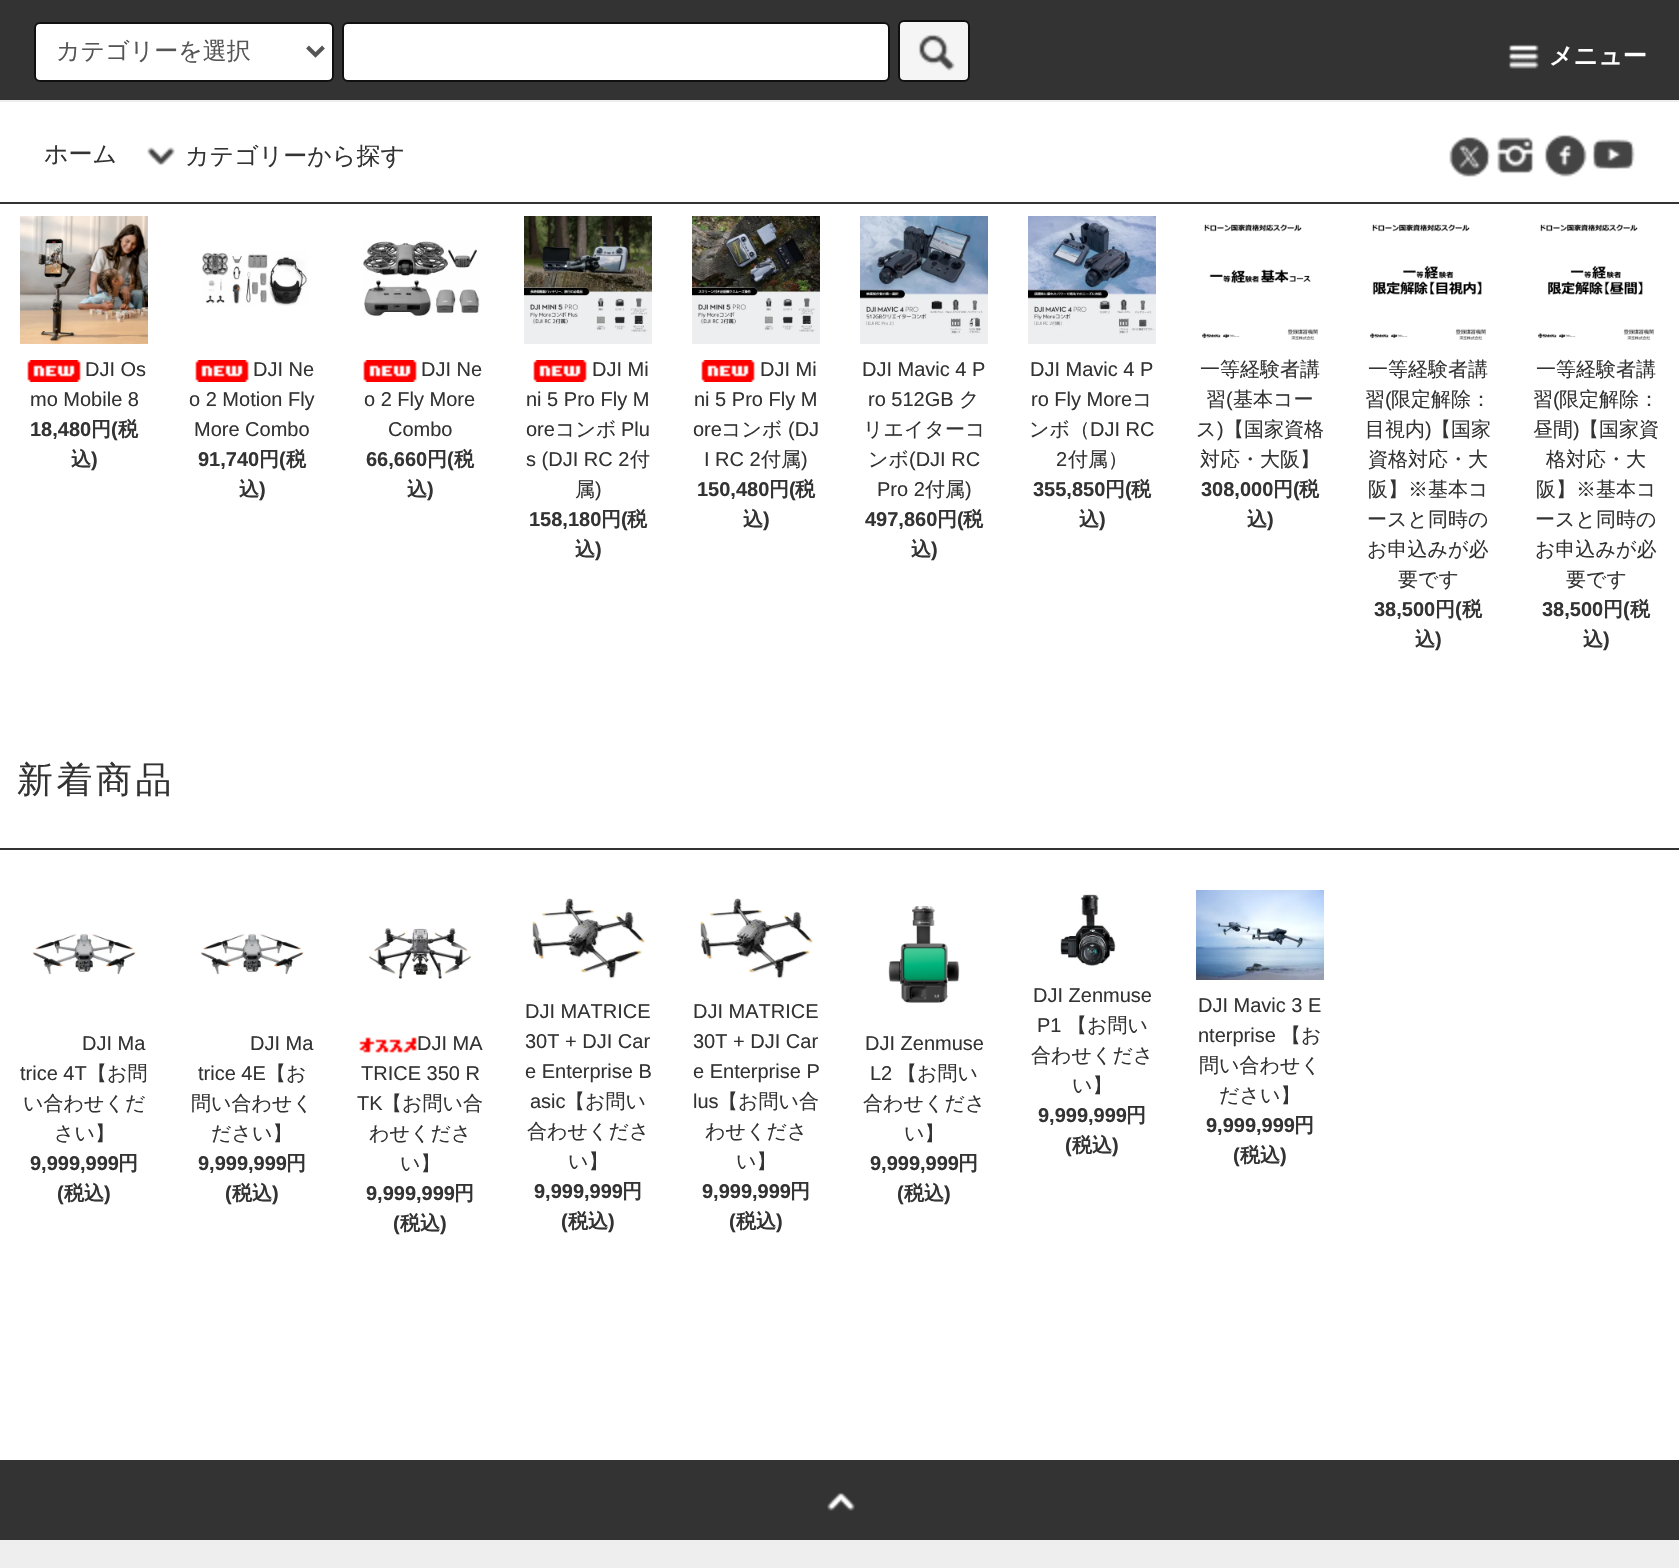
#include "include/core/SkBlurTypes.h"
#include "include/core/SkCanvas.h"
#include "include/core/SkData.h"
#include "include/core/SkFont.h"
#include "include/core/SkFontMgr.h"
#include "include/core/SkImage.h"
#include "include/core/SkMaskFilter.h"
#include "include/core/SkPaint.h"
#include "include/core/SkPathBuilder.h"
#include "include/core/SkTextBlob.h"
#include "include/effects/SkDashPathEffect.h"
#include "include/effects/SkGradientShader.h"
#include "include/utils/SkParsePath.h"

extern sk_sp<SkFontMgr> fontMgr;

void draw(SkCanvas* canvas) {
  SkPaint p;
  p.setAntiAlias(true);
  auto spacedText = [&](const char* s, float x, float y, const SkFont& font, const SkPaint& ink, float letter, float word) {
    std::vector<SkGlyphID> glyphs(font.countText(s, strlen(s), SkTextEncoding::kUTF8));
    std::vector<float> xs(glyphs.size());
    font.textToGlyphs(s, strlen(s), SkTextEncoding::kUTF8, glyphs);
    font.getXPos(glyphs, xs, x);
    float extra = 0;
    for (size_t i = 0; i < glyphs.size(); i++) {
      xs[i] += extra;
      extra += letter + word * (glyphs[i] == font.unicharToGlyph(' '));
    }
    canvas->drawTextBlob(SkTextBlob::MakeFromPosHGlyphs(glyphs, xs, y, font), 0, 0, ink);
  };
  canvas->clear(SK_ColorWHITE);
  p.setColor(SkColorSetRGB(51, 51, 51));
  canvas->drawRect(SkRect::MakeLTRB(0, 0, 1679, 100), p);
  p.setColor(SkColorSetRGB(238, 238, 238));
  canvas->drawRect(SkRect::MakeLTRB(0, 100, 1679, 102), p);
  p.setColor(SK_ColorWHITE);
  canvas->drawRoundRect(SkRect::MakeLTRB(35, 23, 333, 81), 5, 5, p);
  p.setStyle(SkPaint::kStroke_Style);
  p.setStrokeWidth(2);
  p.setColor(SkColorSetRGB(16, 16, 16));
  canvas->drawRoundRect(SkRect::MakeLTRB(35, 23, 333, 81), 5, 5, p);
  p.setStrokeWidth(4);
  p.setColor(SkColorSetRGB(85, 85, 85));
  canvas->drawPath(SkPathBuilder().moveTo(307.5f, 47).lineTo(315.5f, 55).lineTo(323.5f, 47).detach(), p);
  p.setStyle(SkPaint::kFill_Style);
  p.setColor(SK_ColorWHITE);
  canvas->drawRoundRect(SkRect::MakeLTRB(343, 23, 889, 81), 5, 5, p);
  p.setStyle(SkPaint::kStroke_Style);
  p.setStrokeWidth(2);
  p.setColor(SkColorSetRGB(16, 16, 16));
  canvas->drawRoundRect(SkRect::MakeLTRB(343, 23, 889, 81), 5, 5, p);
  p.setStyle(SkPaint::kFill_Style);
  p.setColor(SkColorSetRGB(245, 245, 245));
  canvas->drawRoundRect(SkRect::MakeLTRB(899, 21, 969, 81), 5, 5, p);
  p.setStyle(SkPaint::kStroke_Style);
  p.setColor(SkColorSetRGB(16, 16, 16));
  canvas->drawRoundRect(SkRect::MakeLTRB(899, 21, 969, 81), 5, 5, p);
  canvas->drawImageRect(SkImages::DeferredFromEncodedData(SkData::MakeFromFileName("images/1.png")), SkRect::MakeLTRB(918, 34, 955, 71), SkSamplingOptions());
  canvas->drawImageRect(SkImages::DeferredFromEncodedData(SkData::MakeFromFileName("images/2.png")), SkRect::MakeLTRB(1508, 44, 1539, 69), SkSamplingOptions());
  p.setStyle(SkPaint::kFill_Style);
  p.setColor(SkColorSetRGB(51, 51, 51));
  canvas->drawRect(SkRect::MakeLTRB(0, 202, 1679, 204), p);
  canvas->drawImageRect(SkImages::DeferredFromEncodedData(SkData::MakeFromFileName("images/3.png")), SkRect::MakeLTRB(147, 147, 175, 166), SkSamplingOptions());
  canvas->drawImageRect(SkImages::DeferredFromEncodedData(SkData::MakeFromFileName("images/4.png")), SkRect::MakeLTRB(1449, 136, 1491, 177), SkSamplingOptions());
  canvas->drawImageRect(SkImages::DeferredFromEncodedData(SkData::MakeFromFileName("images/5.png")), SkRect::MakeLTRB(1497, 137, 1534, 174), SkSamplingOptions());
  canvas->drawImageRect(SkImages::DeferredFromEncodedData(SkData::MakeFromFileName("images/6.png")), SkRect::MakeLTRB(1544, 134, 1587, 177), SkSamplingOptions());
  canvas->drawImageRect(SkImages::DeferredFromEncodedData(SkData::MakeFromFileName("images/7.png")), SkRect::MakeLTRB(1592, 139, 1635, 170), SkSamplingOptions());
  canvas->drawImageRect(SkImages::DeferredFromEncodedData(SkData::MakeFromFileName("images/8.png")), SkRect::MakeLTRB(20, 216, 148, 344), SkSamplingOptions());
  canvas->drawImageRect(SkImages::DeferredFromEncodedData(SkData::MakeFromFileName("images/9.png")), SkRect::MakeLTRB(27, 360, 81, 382), SkSamplingOptions());
  canvas->drawImageRect(SkImages::DeferredFromEncodedData(SkData::MakeFromFileName("images/10.png")), SkRect::MakeLTRB(202, 252, 308, 306), SkSamplingOptions());
  canvas->drawImageRect(SkImages::DeferredFromEncodedData(SkData::MakeFromFileName("images/9.png")), SkRect::MakeLTRB(195, 360, 249, 382), SkSamplingOptions());
  canvas->drawImageRect(SkImages::DeferredFromEncodedData(SkData::MakeFromFileName("images/11.png")), SkRect::MakeLTRB(363, 241, 480, 317), SkSamplingOptions());
  canvas->drawImageRect(SkImages::DeferredFromEncodedData(SkData::MakeFromFileName("images/9.png")), SkRect::MakeLTRB(363, 360, 417, 382), SkSamplingOptions());
  canvas->drawImageRect(SkImages::DeferredFromEncodedData(SkData::MakeFromFileName("images/12.png")), SkRect::MakeLTRB(524, 216, 652, 344), SkSamplingOptions());
  canvas->drawImageRect(SkImages::DeferredFromEncodedData(SkData::MakeFromFileName("images/9.png")), SkRect::MakeLTRB(533, 360, 587, 382), SkSamplingOptions());
  canvas->drawImageRect(SkImages::DeferredFromEncodedData(SkData::MakeFromFileName("images/13.png")), SkRect::MakeLTRB(692, 216, 820, 344), SkSamplingOptions());
  canvas->drawImageRect(SkImages::DeferredFromEncodedData(SkData::MakeFromFileName("images/9.png")), SkRect::MakeLTRB(701, 360, 755, 382), SkSamplingOptions());
  canvas->drawImageRect(SkImages::DeferredFromEncodedData(SkData::MakeFromFileName("images/14.png")), SkRect::MakeLTRB(860, 216, 988, 344), SkSamplingOptions());
  canvas->drawImageRect(SkImages::DeferredFromEncodedData(SkData::MakeFromFileName("images/15.png")), SkRect::MakeLTRB(1028, 216, 1156, 344), SkSamplingOptions());
  canvas->drawImageRect(SkImages::DeferredFromEncodedData(SkData::MakeFromFileName("images/16.png")), SkRect::MakeLTRB(1201, 224, 1318, 340), SkSamplingOptions());
  canvas->drawImageRect(SkImages::DeferredFromEncodedData(SkData::MakeFromFileName("images/17.png")), SkRect::MakeLTRB(1369, 224, 1486, 340), SkSamplingOptions());
  canvas->drawImageRect(SkImages::DeferredFromEncodedData(SkData::MakeFromFileName("images/18.png")), SkRect::MakeLTRB(1537, 224, 1654, 340), SkSamplingOptions());
  canvas->drawRect(SkRect::MakeLTRB(0, 848, 1679, 850), p);
  canvas->drawImageRect(SkImages::DeferredFromEncodedData(SkData::MakeFromFileName("images/19.png")), SkRect::MakeLTRB(32, 932, 136, 975), SkSamplingOptions());
  canvas->drawImageRect(SkImages::DeferredFromEncodedData(SkData::MakeFromFileName("images/19.png")), SkRect::MakeLTRB(200, 932, 304, 975), SkSamplingOptions());
  canvas->drawImageRect(SkImages::DeferredFromEncodedData(SkData::MakeFromFileName("images/20.png")), SkRect::MakeLTRB(368, 928, 472, 979), SkSamplingOptions());
  canvas->drawImageRect(SkImages::DeferredFromEncodedData(SkData::MakeFromFileName("images/21.png")), SkRect::MakeLTRB(359, 1037, 417, 1053), SkSamplingOptions());
  canvas->drawImageRect(SkImages::DeferredFromEncodedData(SkData::MakeFromFileName("images/22.png")), SkRect::MakeLTRB(532, 898, 646, 979), SkSamplingOptions());
  canvas->drawImageRect(SkImages::DeferredFromEncodedData(SkData::MakeFromFileName("images/22.png")), SkRect::MakeLTRB(700, 898, 814, 979), SkSamplingOptions());
  canvas->drawImageRect(SkImages::DeferredFromEncodedData(SkData::MakeFromFileName("images/23.png")), SkRect::MakeLTRB(888, 906, 960, 1003), SkSamplingOptions());
  canvas->drawImageRect(SkImages::DeferredFromEncodedData(SkData::MakeFromFileName("images/24.png")), SkRect::MakeLTRB(1060, 894, 1116, 966), SkSamplingOptions());
  canvas->drawImageRect(SkImages::DeferredFromEncodedData(SkData::MakeFromFileName("images/25.png")), SkRect::MakeLTRB(1196, 890, 1324, 980), SkSamplingOptions());
  canvas->drawRect(SkRect::MakeLTRB(0, 1460, 1679, 1540), p);
  canvas->drawImageRect(SkImages::DeferredFromEncodedData(SkData::MakeFromFileName("images/26.png")), SkRect::MakeLTRB(827, 1492, 855, 1511), SkSamplingOptions());
  p.setColor(SkColorSetRGB(238, 238, 238));
  canvas->drawRect(SkRect::MakeLTRB(0, 1540, 1679, 1568), p);
  SkFont font1(fontMgr->matchFamilyStyle("WenQuanYi Zen Hei", SkFontStyle(500, SkFontStyle::kNormal_Width, SkFontStyle::kUpright_Slant)), 24);
  font1.setSubpixel(true);
  p.setColor(SkColorSetRGB(85, 85, 85));
  canvas->drawString("カテゴリーを選択", 56, 59, font1, p);
  SkFont font2(fontMgr->matchFamilyStyle("WenQuanYi Zen Hei", SkFontStyle::Bold()), 24);
  font2.setSubpixel(true);
  p.setColor(SK_ColorWHITE);
  canvas->drawString("メニュー", 1549, 64, font2, p);
  p.setColor(SkColorSetRGB(51, 51, 51));
  canvas->drawString("ホーム", 44, 162, font1, p);
  canvas->drawString("カテゴリーから探す", 185, 164, font1, p);
  SkFont font3(fontMgr->matchFamilyStyle("Liberation Sans", SkFontStyle::Normal()), 20);
  font3.setSubpixel(true);
  canvas->drawString("DJI Os", 85, 376, font3, p);
  canvas->drawString("mo Mobile 8", 30, 406, font3, p);
  SkFont font4(fontMgr->matchFamilyStyle("Liberation Sans", SkFontStyle::Bold()), 20);
  font4.setSubpixel(true);
  canvas->drawString("18,480", 30, 436, font4, p);
  SkFont font5(fontMgr->matchFamilyStyle("WenQuanYi Zen Hei", SkFontStyle::Bold()), 20);
  font5.setSubpixel(true);
  canvas->drawString("円", 91, 436, font5, p);
  canvas->drawString("(", 111, 436, font4, p);
  canvas->drawString("税", 118, 436, font5, p);
  canvas->drawString("込", 71, 466, font5, p);
  canvas->drawString(")", 91, 466, font4, p);
  canvas->drawString("DJI Ne", 253, 376, font3, p);
  canvas->drawString("o 2 Motion Fly", 189, 406, font3, p);
  canvas->drawString("More Combo", 194, 436, font3, p);
  canvas->drawString("91,740", 198, 466, font4, p);
  canvas->drawString("円", 259, 466, font5, p);
  canvas->drawString("(", 279, 466, font4, p);
  canvas->drawString("税", 286, 466, font5, p);
  canvas->drawString("込", 239, 496, font5, p);
  canvas->drawString(")", 259, 496, font4, p);
  canvas->drawString("DJI Ne", 421, 376, font3, p);
  canvas->drawString("o 2 Fly More", 364, 406, font3, p);
  canvas->drawString("Combo", 388, 436, font3, p);
  canvas->drawString("66,660", 366, 466, font4, p);
  canvas->drawString("円", 427, 466, font5, p);
  canvas->drawString("(", 447, 466, font4, p);
  canvas->drawString("税", 454, 466, font5, p);
  canvas->drawString("込", 407, 496, font5, p);
  canvas->drawString(")", 427, 496, font4, p);
  canvas->drawString("DJI Mi", 592, 376, font3, p);
  canvas->drawString("ni 5 Pro Fly M", 526, 406, font3, p);
  canvas->drawString("ore", 526, 436, font3, p);
  SkFont font6(fontMgr->matchFamilyStyle("WenQuanYi Zen Hei", SkFontStyle(500, SkFontStyle::kNormal_Width, SkFontStyle::kUpright_Slant)), 20);
  font6.setSubpixel(true);
  canvas->drawString("コンボ", 555, 436, font6, p);
  canvas->drawString("Plu", 621, 436, font3, p);
  canvas->drawString("s (DJI RC 2", 526, 466, font3, p);
  canvas->drawString("付", 630, 466, font6, p);
  canvas->drawString("属", 575, 496, font6, p);
  canvas->drawString(")", 595, 496, font3, p);
  canvas->drawString("158,180", 529, 526, font4, p);
  canvas->drawString("円", 601, 526, font5, p);
  canvas->drawString("(", 621, 526, font4, p);
  canvas->drawString("税", 627, 526, font5, p);
  canvas->drawString("込", 575, 556, font5, p);
  canvas->drawString(")", 595, 556, font4, p);
  canvas->drawString("DJI Mi", 760, 376, font3, p);
  canvas->drawString("ni 5 Pro Fly M", 694, 406, font3, p);
  canvas->drawString("ore", 693, 436, font3, p);
  canvas->drawString("コンボ", 721, 436, font6, p);
  canvas->drawString("(DJ", 788, 436, font3, p);
  canvas->drawString("I RC 2", 704, 466, font3, p);
  canvas->drawString("付属", 761, 466, font6, p);
  canvas->drawString(")", 801, 466, font3, p);
  canvas->drawString("150,480", 697, 496, font4, p);
  canvas->drawString("円", 769, 496, font5, p);
  canvas->drawString("(", 789, 496, font4, p);
  canvas->drawString("税", 795, 496, font5, p);
  canvas->drawString("込", 743, 526, font5, p);
  canvas->drawString(")", 763, 526, font4, p);
  canvas->drawString("DJI Mavic 4 P", 862, 376, font3, p);
  canvas->drawString("ro 512GB", 868, 406, font3, p);
  canvas->drawString("ク", 959, 406, font6, p);
  canvas->drawString("リエイターコ", 863, 436, font6, p);
  canvas->drawString("ンボ", 868, 466, font6, p);
  canvas->drawString("(DJI RC", 909, 466, font3, p);
  canvas->drawString("Pro 2", 877, 496, font3, p);
  canvas->drawString("付属", 925, 496, font6, p);
  canvas->drawString(")", 965, 496, font3, p);
  canvas->drawString("497,860", 865, 526, font4, p);
  canvas->drawString("円", 937, 526, font5, p);
  canvas->drawString("(", 957, 526, font4, p);
  canvas->drawString("税", 963, 526, font5, p);
  canvas->drawString("込", 911, 556, font5, p);
  canvas->drawString(")", 931, 556, font4, p);
  canvas->drawString("DJI Mavic 4 P", 1030, 376, font3, p);
  canvas->drawString("ro Fly More", 1031, 406, font3, p);
  canvas->drawString("コ", 1132, 406, font6, p);
  canvas->drawString("ンボ（", 1029, 436, font6, p);
  canvas->drawString("DJI RC", 1090, 436, font3, p);
  canvas->drawString("2", 1056, 466, font3, p);
  canvas->drawString("付属）", 1068, 466, font6, p);
  canvas->drawString("355,850", 1033, 496, font4, p);
  canvas->drawString("円", 1105, 496, font5, p);
  canvas->drawString("(", 1125, 496, font4, p);
  canvas->drawString("税", 1131, 496, font5, p);
  canvas->drawString("込", 1079, 526, font5, p);
  canvas->drawString(")", 1099, 526, font4, p);
  canvas->drawString("一等経験者講", 1200, 376, font6, p);
  canvas->drawString("習", 1206, 406, font6, p);
  canvas->drawString("(", 1226, 406, font3, p);
  canvas->drawString("基本コー", 1233, 406, font6, p);
  canvas->drawString("ス", 1196, 436, font6, p);
  canvas->drawString(")", 1217, 436, font3, p);
  canvas->drawString("【国家資格", 1224, 436, font6, p);
  canvas->drawString("対応・大阪】", 1200, 466, font6, p);
  canvas->drawString("308,000", 1201, 496, font4, p);
  canvas->drawString("円", 1273, 496, font5, p);
  canvas->drawString("(", 1293, 496, font4, p);
  canvas->drawString("税", 1299, 496, font5, p);
  canvas->drawString("込", 1247, 526, font5, p);
  canvas->drawString(")", 1267, 526, font4, p);
  canvas->drawString("一等経験者講", 1368, 376, font6, p);
  canvas->drawString("習", 1365, 406, font6, p);
  canvas->drawString("(", 1385, 406, font3, p);
  canvas->drawString("限定解除：", 1391, 406, font6, p);
  canvas->drawString("目視内", 1365, 436, font6, p);
  canvas->drawString(")", 1425, 436, font3, p);
  canvas->drawString("【国家", 1431, 436, font6, p);
  canvas->drawString("資格対応・大", 1368, 466, font6, p);
  canvas->drawString("阪】※基本コ", 1368, 496, font6, p);
  canvas->drawString("ースと同時の", 1367, 526, font6, p);
  canvas->drawString("お申込みが必", 1367, 556, font6, p);
  canvas->drawString("要です", 1398, 586, font6, p);
  canvas->drawString("38,500", 1374, 616, font4, p);
  canvas->drawString("円", 1435, 616, font5, p);
  canvas->drawString("(", 1455, 616, font4, p);
  canvas->drawString("税", 1462, 616, font5, p);
  canvas->drawString("込", 1415, 646, font5, p);
  canvas->drawString(")", 1435, 646, font4, p);
  canvas->drawString("一等経験者講", 1536, 376, font6, p);
  canvas->drawString("習", 1533, 406, font6, p);
  canvas->drawString("(", 1553, 406, font3, p);
  canvas->drawString("限定解除：", 1559, 406, font6, p);
  canvas->drawString("昼間", 1533, 436, font6, p);
  canvas->drawString(")", 1573, 436, font3, p);
  canvas->drawString("【国家資", 1579, 436, font6, p);
  canvas->drawString("格対応・大", 1546, 466, font6, p);
  canvas->drawString("阪】※基本コ", 1536, 496, font6, p);
  canvas->drawString("ースと同時の", 1535, 526, font6, p);
  canvas->drawString("お申込みが必", 1535, 556, font6, p);
  canvas->drawString("要です", 1566, 586, font6, p);
  canvas->drawString("38,500", 1542, 616, font4, p);
  canvas->drawString("円", 1603, 616, font5, p);
  canvas->drawString("(", 1623, 616, font4, p);
  canvas->drawString("税", 1630, 616, font5, p);
  canvas->drawString("込", 1583, 646, font5, p);
  canvas->drawString(")", 1603, 646, font4, p);
  SkFont font7(fontMgr->matchFamilyStyle("WenQuanYi Zen Hei", SkFontStyle(500, SkFontStyle::kNormal_Width, SkFontStyle::kUpright_Slant)), 36);
  font7.setSubpixel(true);
  spacedText("新着商品", 17, 792, font7, p, 3.5f, 0);
  canvas->drawString("DJI Ma", 82, 1050, font3, p);
  canvas->drawString("trice 4T", 20, 1080, font3, p);
  canvas->drawString("【お問", 87, 1080, font6, p);
  canvas->drawString("い合わせくだ", 23, 1110, font6, p);
  canvas->drawString("さい】", 54, 1140, font6, p);
  canvas->drawString("9,999,999", 30, 1170, font4, p);
  canvas->drawString("円", 118, 1170, font5, p);
  canvas->drawString("(", 57, 1200, font4, p);
  canvas->drawString("税込", 64, 1200, font5, p);
  canvas->drawString(")", 104, 1200, font4, p);
  canvas->drawString("DJI Ma", 250, 1050, font3, p);
  canvas->drawString("trice 4E", 198, 1080, font3, p);
  canvas->drawString("【お", 266, 1080, font6, p);
  canvas->drawString("問い合わせく", 191, 1110, font6, p);
  canvas->drawString("ださい】", 211, 1140, font6, p);
  canvas->drawString("9,999,999", 198, 1170, font4, p);
  canvas->drawString("円", 286, 1170, font5, p);
  canvas->drawString("(", 225, 1200, font4, p);
  canvas->drawString("税込", 232, 1200, font5, p);
  canvas->drawString(")", 272, 1200, font4, p);
  canvas->drawString("DJI MA", 417, 1050, font3, p);
  canvas->drawString("TRICE 350 R", 361, 1080, font3, p);
  canvas->drawString("TK", 357, 1110, font3, p);
  canvas->drawString("【お問い合", 382, 1110, font6, p);
  canvas->drawString("わせくださ", 369, 1140, font6, p);
  canvas->drawString("い】", 400, 1170, font6, p);
  canvas->drawString("9,999,999", 366, 1200, font4, p);
  canvas->drawString("円", 454, 1200, font5, p);
  canvas->drawString("(", 393, 1230, font4, p);
  canvas->drawString("税込", 400, 1230, font5, p);
  canvas->drawString(")", 440, 1230, font4, p);
  canvas->drawString("DJI MATRICE", 525, 1018, font3, p);
  canvas->drawString("30T + DJI Car", 525, 1048, font3, p);
  canvas->drawString("e Enterprise B", 525, 1078, font3, p);
  canvas->drawString("asic", 530, 1108, font3, p);
  canvas->drawString("【お問い", 565, 1108, font6, p);
  canvas->drawString("合わせくださ", 527, 1138, font6, p);
  canvas->drawString("い】", 568, 1168, font6, p);
  canvas->drawString("9,999,999", 534, 1198, font4, p);
  canvas->drawString("円", 622, 1198, font5, p);
  canvas->drawString("(", 561, 1228, font4, p);
  canvas->drawString("税込", 568, 1228, font5, p);
  canvas->drawString(")", 608, 1228, font4, p);
  canvas->drawString("DJI MATRICE", 693, 1018, font3, p);
  canvas->drawString("30T + DJI Car", 693, 1048, font3, p);
  canvas->drawString("e Enterprise P", 693, 1078, font3, p);
  canvas->drawString("lus", 693, 1108, font3, p);
  canvas->drawString("【お問い合", 718, 1108, font6, p);
  canvas->drawString("わせくださ", 705, 1138, font6, p);
  canvas->drawString("い】", 736, 1168, font6, p);
  canvas->drawString("9,999,999", 702, 1198, font4, p);
  canvas->drawString("円", 790, 1198, font5, p);
  canvas->drawString("(", 729, 1228, font4, p);
  canvas->drawString("税込", 736, 1228, font5, p);
  canvas->drawString(")", 776, 1228, font4, p);
  canvas->drawString("DJI Zenmuse", 865, 1050, font3, p);
  canvas->drawString("L2", 870, 1080, font3, p);
  canvas->drawString("【お問い", 897, 1080, font6, p);
  canvas->drawString("合わせくださ", 863, 1110, font6, p);
  canvas->drawString("い】", 904, 1140, font6, p);
  canvas->drawString("9,999,999", 870, 1170, font4, p);
  canvas->drawString("円", 958, 1170, font5, p);
  canvas->drawString("(", 897, 1200, font4, p);
  canvas->drawString("税込", 904, 1200, font5, p);
  canvas->drawString(")", 944, 1200, font4, p);
  canvas->drawString("DJI Zenmuse", 1033, 1002, font3, p);
  canvas->drawString("P1", 1037, 1032, font3, p);
  canvas->drawString("【お問い", 1067, 1032, font6, p);
  canvas->drawString("合わせくださ", 1031, 1062, font6, p);
  canvas->drawString("い】", 1072, 1092, font6, p);
  canvas->drawString("9,999,999", 1038, 1122, font4, p);
  canvas->drawString("円", 1126, 1122, font5, p);
  canvas->drawString("(", 1065, 1152, font4, p);
  canvas->drawString("税込", 1072, 1152, font5, p);
  canvas->drawString(")", 1112, 1152, font4, p);
  canvas->drawString("DJI Mavic 3 E", 1198, 1012, font3, p);
  canvas->drawString("nterprise", 1198, 1042, font3, p);
  canvas->drawString("【お", 1281, 1042, font6, p);
  canvas->drawString("問い合わせく", 1199, 1072, font6, p);
  canvas->drawString("ださい】", 1219, 1102, font6, p);
  canvas->drawString("9,999,999", 1206, 1132, font4, p);
  canvas->drawString("円", 1294, 1132, font5, p);
  canvas->drawString("(", 1233, 1162, font4, p);
  canvas->drawString("税込", 1240, 1162, font5, p);
  canvas->drawString(")", 1280, 1162, font4, p);
}
